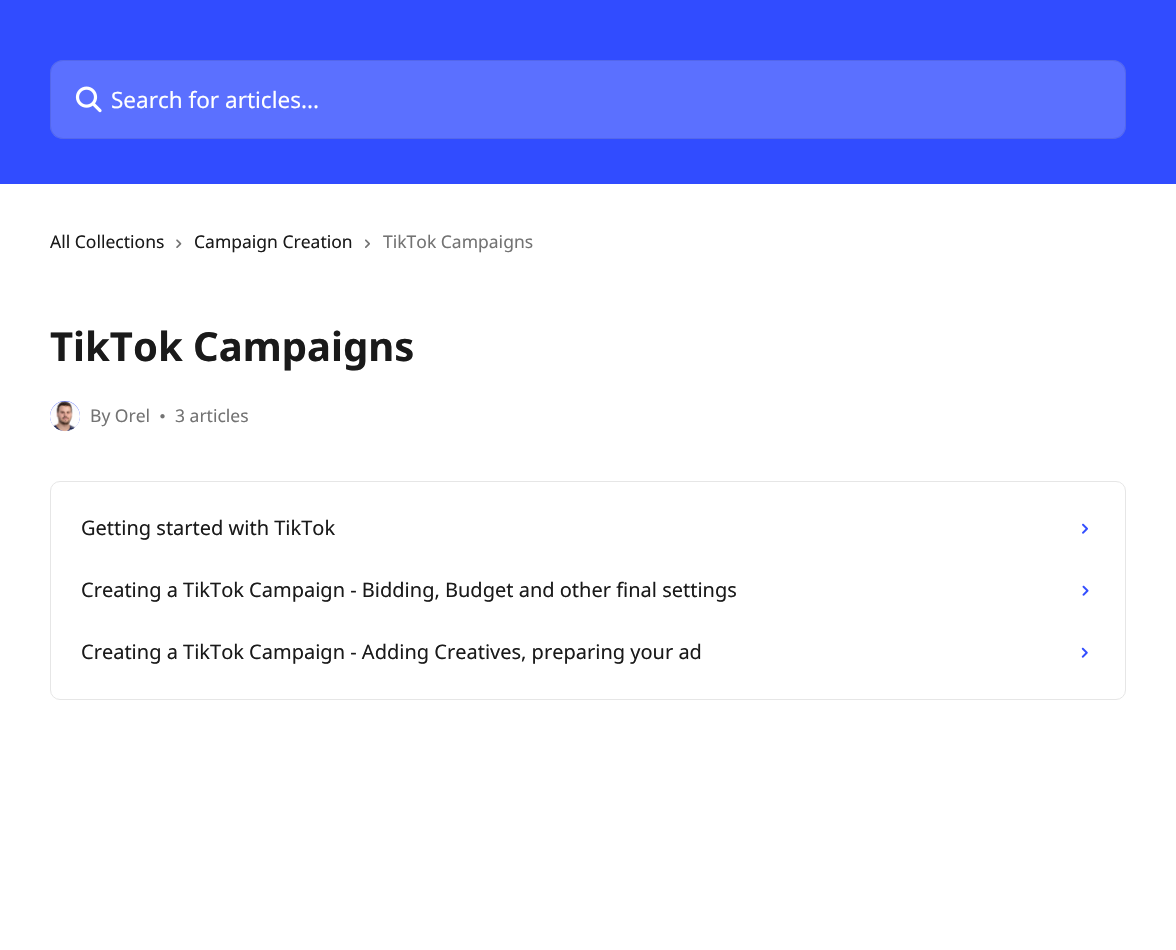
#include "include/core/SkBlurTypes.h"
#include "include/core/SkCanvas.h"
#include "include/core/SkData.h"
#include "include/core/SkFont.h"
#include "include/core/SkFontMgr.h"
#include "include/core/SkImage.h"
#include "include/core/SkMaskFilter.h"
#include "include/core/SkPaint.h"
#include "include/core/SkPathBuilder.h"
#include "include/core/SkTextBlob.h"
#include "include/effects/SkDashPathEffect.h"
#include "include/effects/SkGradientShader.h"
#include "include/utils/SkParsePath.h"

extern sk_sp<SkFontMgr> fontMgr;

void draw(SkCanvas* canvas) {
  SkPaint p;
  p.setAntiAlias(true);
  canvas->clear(SK_ColorWHITE);
  p.setColor(SkColorSetRGB(49, 76, 255));
  canvas->drawRect(SkRect::MakeLTRB(0, 0, 1176, 184), p);
  p.setColor(SkColorSetARGB(51, 255, 255, 255));
  canvas->drawRoundRect(SkRect::MakeLTRB(50, 60, 1126, 139), 13, 13, p);
  p.setStyle(SkPaint::kStroke_Style);
  p.setStrokeWidth(1);
  p.setColor(SkColorSetARGB(20, 0, 0, 0));
  canvas->drawRoundRect(SkRect::MakeLTRB(50.5f, 60.5f, 1125.5f, 138.5f), 12.5f, 12.5f, p);
  canvas->drawImageRect(SkImages::DeferredFromEncodedData(SkData::MakeFromFileName("images/1.png")), SkRect::MakeLTRB(75, 86, 102, 113), SkSamplingOptions());
  canvas->drawImageRect(SkImages::DeferredFromEncodedData(SkData::MakeFromFileName("images/2.png")), SkRect::MakeLTRB(176, 239, 182, 248), SkSamplingOptions());
  canvas->drawImageRect(SkImages::DeferredFromEncodedData(SkData::MakeFromFileName("images/3.png")), SkRect::MakeLTRB(365, 239, 370, 248), SkSamplingOptions());
  p.setStyle(SkPaint::kFill_Style);
  p.setColor(SkColorSetRGB(51, 78, 255));
  canvas->drawCircle(65, 416, 15, p);
  canvas->drawImageRect(SkImages::DeferredFromEncodedData(SkData::MakeFromFileName("images/4.png")), SkRect::MakeLTRB(50, 401, 80, 432), SkSamplingOptions());
  canvas->drawImageRect(SkImages::DeferredFromEncodedData(SkData::MakeFromFileName("images/5.png")), SkRect::MakeLTRB(160, 414, 165, 419), SkSamplingOptions());
  p.setStyle(SkPaint::kStroke_Style);
  p.setColor(SkColorSetRGB(230, 230, 230));
  canvas->drawRoundRect(SkRect::MakeLTRB(50.5f, 481.5f, 1125.5f, 699.5f), 9.5f, 9.5f, p);
  canvas->drawImageRect(SkImages::DeferredFromEncodedData(SkData::MakeFromFileName("images/6.png")), SkRect::MakeLTRB(1082, 523, 1088, 534), SkSamplingOptions());
  canvas->drawImageRect(SkImages::DeferredFromEncodedData(SkData::MakeFromFileName("images/7.png")), SkRect::MakeLTRB(1082, 585, 1089, 596), SkSamplingOptions());
  canvas->drawImageRect(SkImages::DeferredFromEncodedData(SkData::MakeFromFileName("images/8.png")), SkRect::MakeLTRB(1081, 647, 1088, 658), SkSamplingOptions());
  SkFont font1(fontMgr->matchFamilyStyle("Noto Sans", SkFontStyle::Normal()), 22.5f);
  font1.setSubpixel(true);
  p.setStyle(SkPaint::kFill_Style);
  p.setColor(SK_ColorWHITE);
  canvas->drawString("Search for articles...", 111, 108, font1, p);
  SkFont font2(fontMgr->matchFamilyStyle("Noto Sans", SkFontStyle::Normal()), 17.5f);
  font2.setSubpixel(true);
  p.setColor(SkColorSetRGB(26, 26, 26));
  canvas->drawString("All Collections", 50, 248, font2, p);
  canvas->drawString("Campaign Creation", 194, 248, font2, p);
  p.setColor(SkColorSetRGB(115, 115, 115));
  canvas->drawString("TikTok Campaigns", 383, 248, font2, p);
  SkFont font3(fontMgr->matchFamilyStyle("Noto Sans", SkFontStyle::Bold()), 40);
  font3.setSubpixel(true);
  p.setColor(SkColorSetRGB(26, 26, 26));
  canvas->drawString("TikTok Campaigns", 50, 361, font3, p);
  p.setColor(SkColorSetRGB(115, 115, 115));
  canvas->drawString("By Orel", 90, 422, font2, p);
  canvas->drawString("3 articles", 175, 422, font2, p);
  SkFont font4(fontMgr->matchFamilyStyle("Noto Sans", SkFontStyle::Normal()), 20);
  font4.setSubpixel(true);
  p.setColor(SkColorSetRGB(26, 26, 26));
  canvas->drawString("Getting started with TikTok", 81, 535, font4, p);
  canvas->drawString("Creating a TikTok Campaign - Bidding, Budget and other final settings", 81, 597, font4, p);
  canvas->drawString("Creating a TikTok Campaign - Adding Creatives, preparing your ad", 81, 659, font4, p);
}
